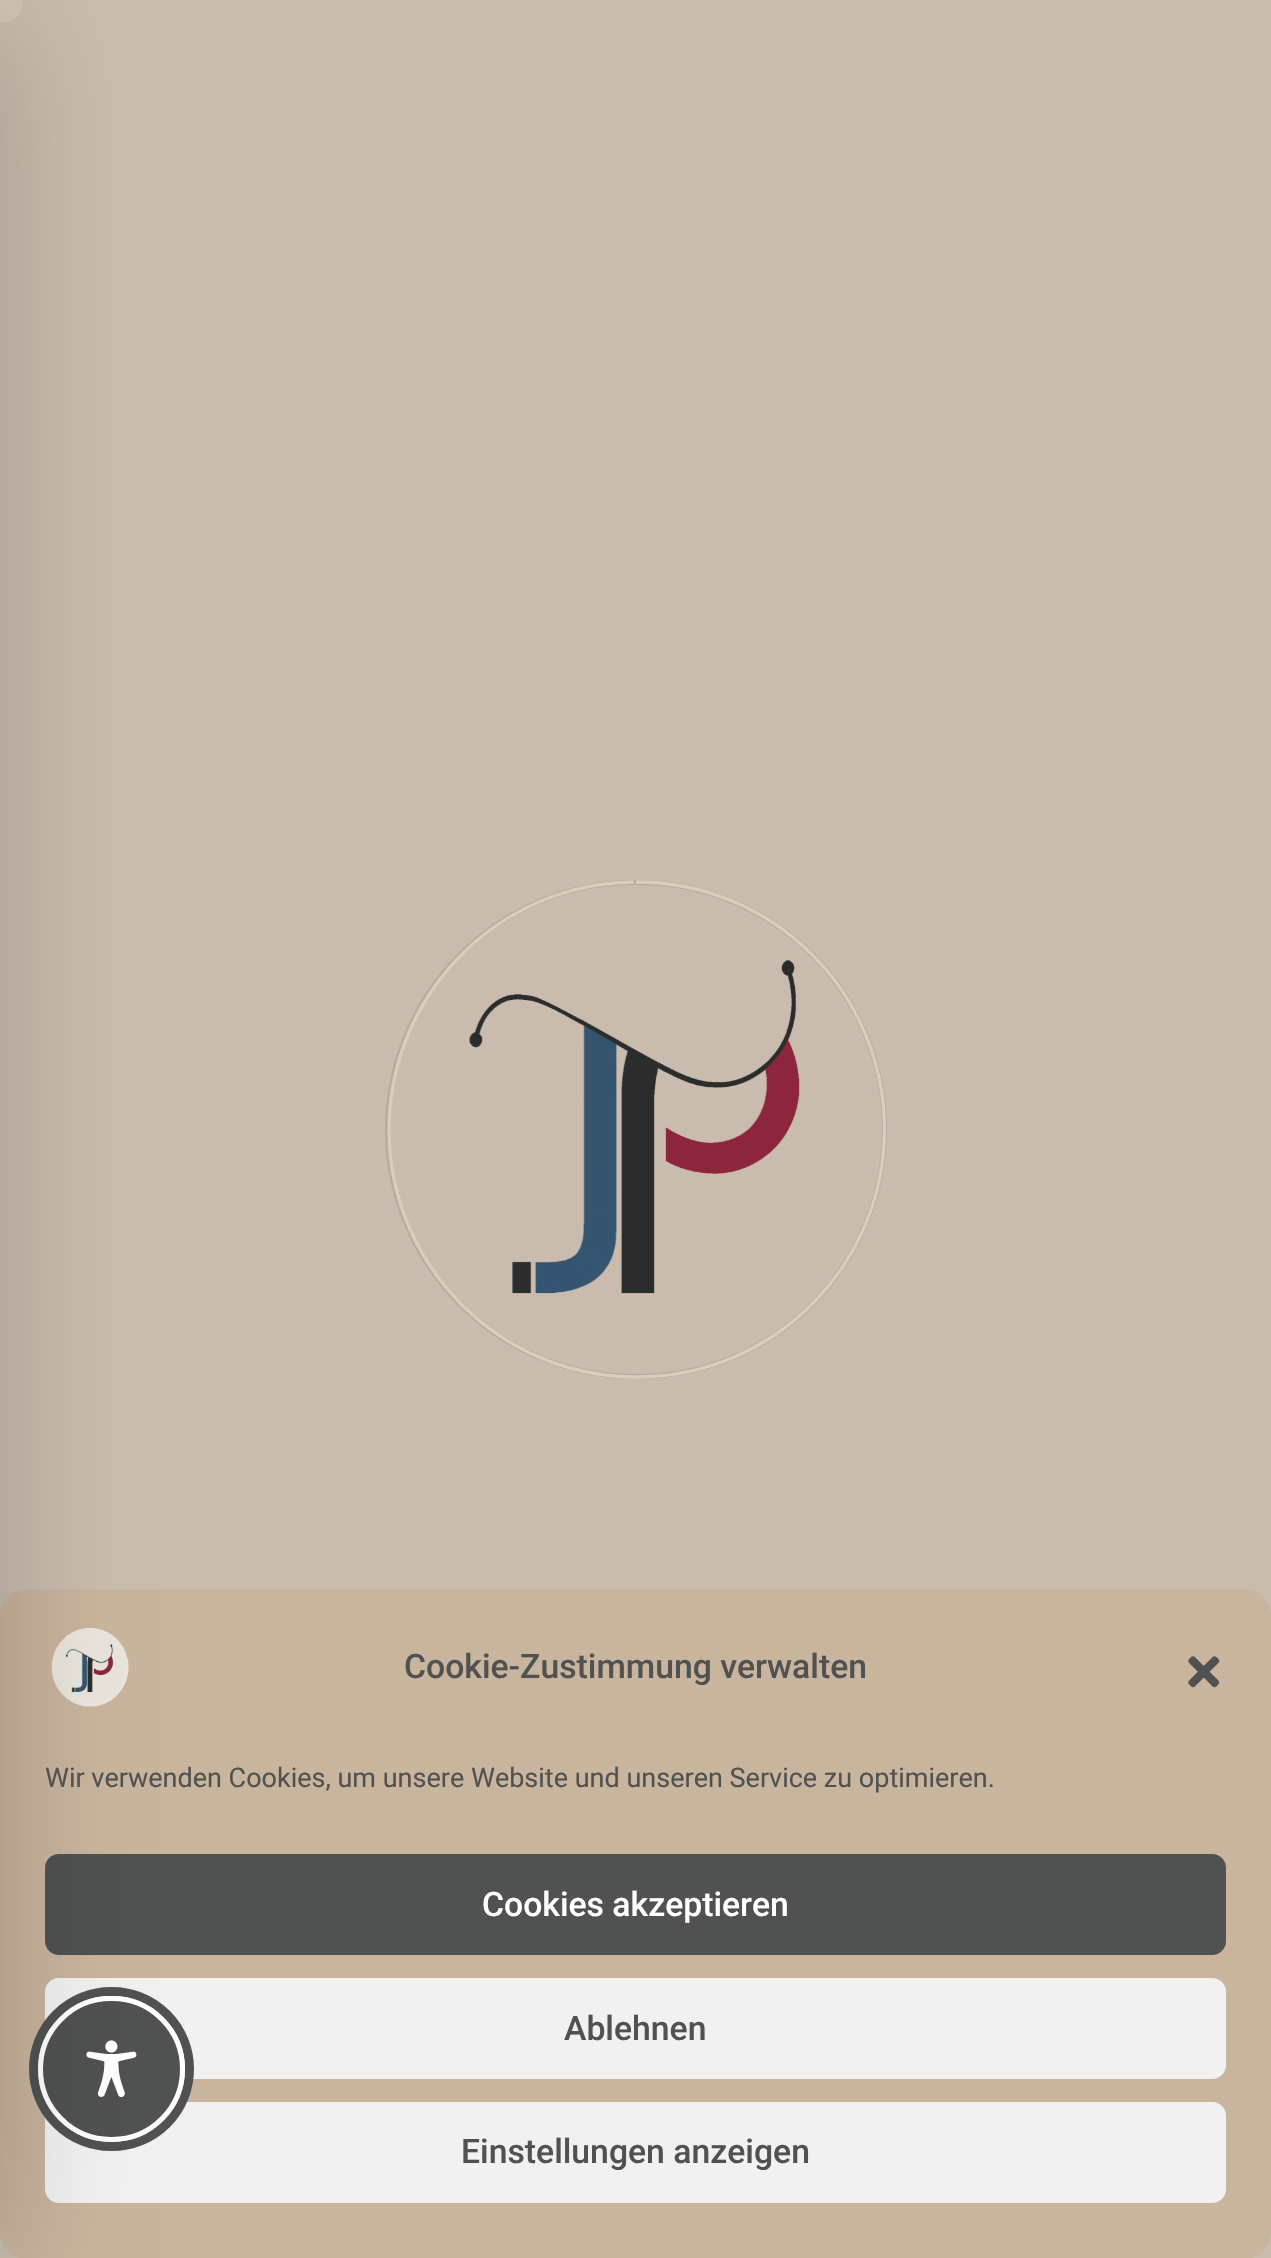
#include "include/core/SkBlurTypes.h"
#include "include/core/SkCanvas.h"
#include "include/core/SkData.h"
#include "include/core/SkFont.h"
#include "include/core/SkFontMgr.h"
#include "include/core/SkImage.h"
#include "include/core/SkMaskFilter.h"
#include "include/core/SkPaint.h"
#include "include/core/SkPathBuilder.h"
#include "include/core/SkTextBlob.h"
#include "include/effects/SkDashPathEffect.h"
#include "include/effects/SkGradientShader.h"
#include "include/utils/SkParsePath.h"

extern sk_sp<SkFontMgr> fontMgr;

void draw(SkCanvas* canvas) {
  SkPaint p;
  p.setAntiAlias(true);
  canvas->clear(SkColorSetRGB(201, 188, 174));
  p.setColor(SkColorSetRGB(209, 197, 180));
  canvas->drawCircle(0.5f, 0.5f, 22.5f, p);
  p.setStyle(SkPaint::kStroke_Style);
  p.setStrokeWidth(5);
  p.setColor(SkColorSetRGB(182, 172, 163));
  canvas->drawRoundRect(SkRect::MakeLTRB(387.5f, 882.5f, 884.5f, 1376.5f), 247, 247, p);
  canvas->drawImageRect(SkImages::DeferredFromEncodedData(SkData::MakeFromFileName("images/1.png")), SkRect::MakeLTRB(469, 960, 800, 1294), SkSamplingOptions());
  canvas->save();
  canvas->clipPath(SkPathBuilder().moveTo(637, 880).cubicTo(775, 880, 887, 992, 887, 1130).lineTo(887, 1132).cubicTo(887, 1270, 775, 1382, 637, 1382).cubicTo(499, 1382, 387, 1270, 387, 1132).lineTo(387, 1130).cubicTo(387, 992, 499, 880, 637, 880).close().detach(), true);
  p.setStrokeWidth(3.3f);
  p.setColor(SkColorSetRGB(217, 206, 185));
  canvas->drawPath(SkPathBuilder().moveTo(633.5f, 882).cubicTo(498, 883.5f, 389, 994.5f, 389, 1130).cubicTo(389.5f, 1267, 500.5f, 1377.5f, 637.5f, 1377).cubicTo(774, 1376.5f, 884.5f, 1265.5f, 884.5f, 1129).cubicTo(884, 992, 773, 881.5f, 636, 882).detach(), p);
  canvas->restore();
  p.setStyle(SkPaint::kFill_Style);
  p.setColor(SkColorSetRGB(201, 180, 157));
  canvas->drawRoundRect(SkRect::MakeLTRB(0, 1589, 1271, 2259), 27, 27, p);
  canvas->drawImageRect(SkImages::DeferredFromEncodedData(SkData::MakeFromFileName("images/2.png")), SkRect::MakeLTRB(51, 1628, 129, 1707), SkSamplingOptions());
  p.setColor(SkColorSetRGB(80, 82, 82));
  canvas->drawRoundRect(SkRect::MakeLTRB(46, 1855, 1225, 1954), 13, 13, p);
  p.setStyle(SkPaint::kStroke_Style);
  p.setStrokeWidth(2);
  canvas->drawRoundRect(SkRect::MakeLTRB(46, 1855, 1225, 1954), 13, 13, p);
  p.setStyle(SkPaint::kFill_Style);
  p.setColor(SkColorSetRGB(241, 241, 241));
  canvas->drawRoundRect(SkRect::MakeLTRB(46, 1979, 1225, 2078), 13, 13, p);
  p.setStyle(SkPaint::kStroke_Style);
  canvas->drawRoundRect(SkRect::MakeLTRB(46, 1979, 1225, 2078), 13, 13, p);
  p.setStyle(SkPaint::kFill_Style);
  canvas->drawRoundRect(SkRect::MakeLTRB(46, 2103, 1225, 2202), 13, 13, p);
  p.setStyle(SkPaint::kStroke_Style);
  canvas->drawRoundRect(SkRect::MakeLTRB(46, 2103, 1225, 2202), 13, 13, p);
  p.setStrokeWidth(9);
  p.setColor(SkColorSetRGB(80, 82, 82));
  canvas->drawRoundRect(SkRect::MakeLTRB(33.5f, 1991.5f, 189.5f, 2146.5f), 77.5f, 77.5f, p);
  p.setStyle(SkPaint::kFill_Style);
  canvas->drawRoundRect(SkRect::MakeLTRB(40.5f, 1998.5f, 182.5f, 2139.5f), 70.5f, 70.5f, p);
  p.setStyle(SkPaint::kStroke_Style);
  p.setStrokeWidth(5);
  p.setColor(SK_ColorWHITE);
  canvas->drawRoundRect(SkRect::MakeLTRB(40.5f, 1998.5f, 182.5f, 2139.5f), 70.5f, 70.5f, p);
  canvas->drawImageRect(SkImages::DeferredFromEncodedData(SkData::MakeFromFileName("images/4.png")), SkRect::MakeLTRB(86, 2040, 137, 2098), SkSamplingOptions());
  p.setStyle(SkPaint::kFill_Style);
  p.setColor(SkColorSetARGB(51, 0, 0, 0));
  p.setMaskFilter(SkMaskFilter::MakeBlur(kNormal_SkBlurStyle, 67.5f));
  canvas->drawRect(SkRect::MakeLTRB(-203, 23, 0, 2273), p);
  p.setMaskFilter(nullptr);
  canvas->drawImageRect(SkImages::DeferredFromEncodedData(SkData::MakeFromFileName("images/3.png")), SkRect::MakeLTRB(1188, 1656, 1220, 1688), SkSamplingOptions());
  SkFont font1(fontMgr->matchFamilyStyle("Roboto", SkFontStyle(500, SkFontStyle::kNormal_Width, SkFontStyle::kUpright_Slant)), 33.75f);
  font1.setSubpixel(true);
  p.setColor(SkColorSetRGB(80, 82, 82));
  canvas->drawString("Cookie-Zustimmung verwalten", 404, 1678, font1, p);
  SkFont font2(fontMgr->matchFamilyStyle("Roboto", SkFontStyle::Normal()), 27);
  font2.setSubpixel(true);
  canvas->drawString("Wir verwenden Cookies, um unsere Website und unseren Service zu optimieren.", 45, 1787, font2, p);
  p.setColor(SK_ColorWHITE);
  canvas->drawString("Cookies akzeptieren", 482, 1916, font1, p);
  p.setColor(SkColorSetRGB(80, 82, 82));
  canvas->drawString("Ablehnen", 564, 2040, font1, p);
  canvas->drawString("Einstellungen anzeigen", 461, 2163, font1, p);
}
